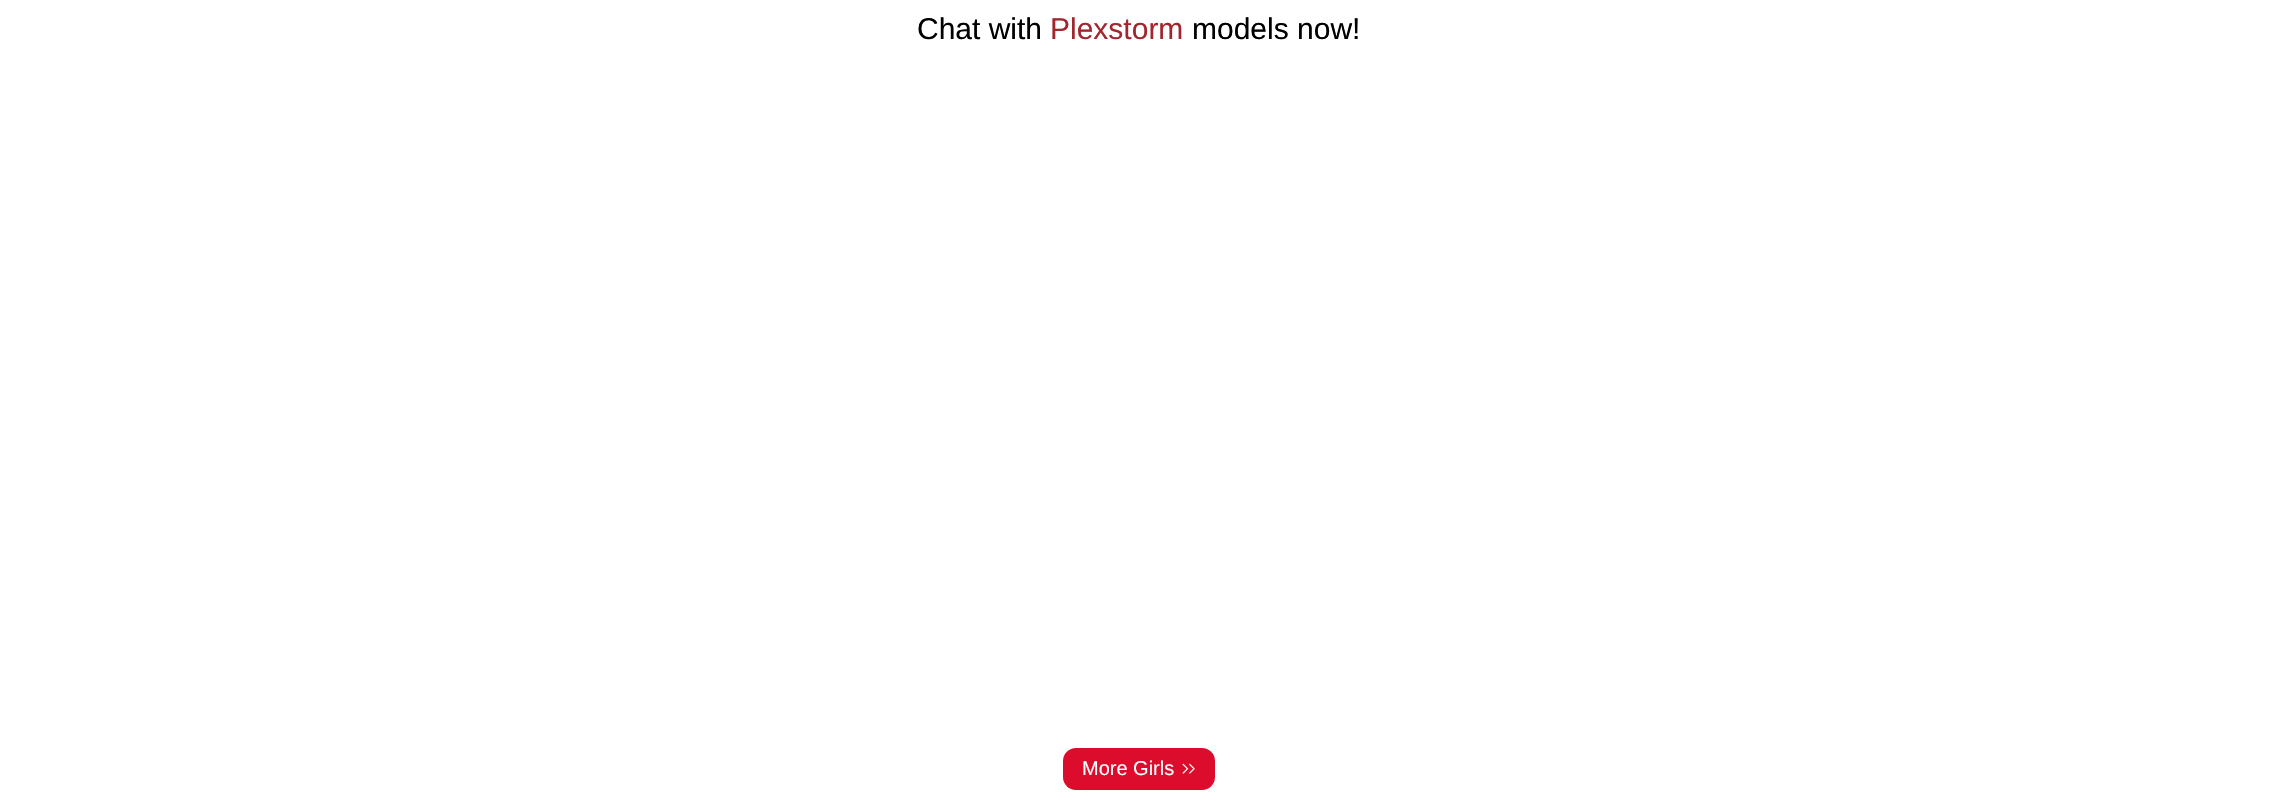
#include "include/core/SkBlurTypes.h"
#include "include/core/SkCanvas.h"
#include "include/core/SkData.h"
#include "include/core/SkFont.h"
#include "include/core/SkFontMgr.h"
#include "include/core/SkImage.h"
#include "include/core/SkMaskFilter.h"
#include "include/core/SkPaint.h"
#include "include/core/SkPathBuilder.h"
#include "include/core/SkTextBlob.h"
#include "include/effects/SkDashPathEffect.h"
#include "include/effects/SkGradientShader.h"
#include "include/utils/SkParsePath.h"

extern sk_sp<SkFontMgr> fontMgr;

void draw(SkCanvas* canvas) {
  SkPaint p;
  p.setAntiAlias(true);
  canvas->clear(SK_ColorWHITE);
  p.setColor(SkColorSetRGB(220, 12, 44));
  canvas->drawRoundRect(SkRect::MakeLTRB(1063, 748, 1215, 790), 13, 13, p);
  canvas->drawImageRect(SkImages::DeferredFromEncodedData(SkData::MakeFromFileName("images/1.png")), SkRect::MakeLTRB(1182, 763, 1195, 774), SkSamplingOptions());
  SkFont font1(fontMgr->matchFamilyStyle("Liberation Sans", SkFontStyle::Normal()), 30);
  font1.setSubpixel(true);
  p.setColor(SK_ColorBLACK);
  canvas->drawString("Chat with", 917, 39, font1, p);
  p.setColor(SkColorSetRGB(162, 38, 46));
  canvas->drawString("Plexstorm", 1050, 39, font1, p);
  p.setColor(SK_ColorBLACK);
  canvas->drawString("models now!", 1192, 39, font1, p);
  SkFont font2(fontMgr->matchFamilyStyle("Liberation Sans", SkFontStyle::Normal()), 20);
  font2.setSubpixel(true);
  p.setColor(SK_ColorWHITE);
  canvas->drawString("More Girls", 1082, 775, font2, p);
}
